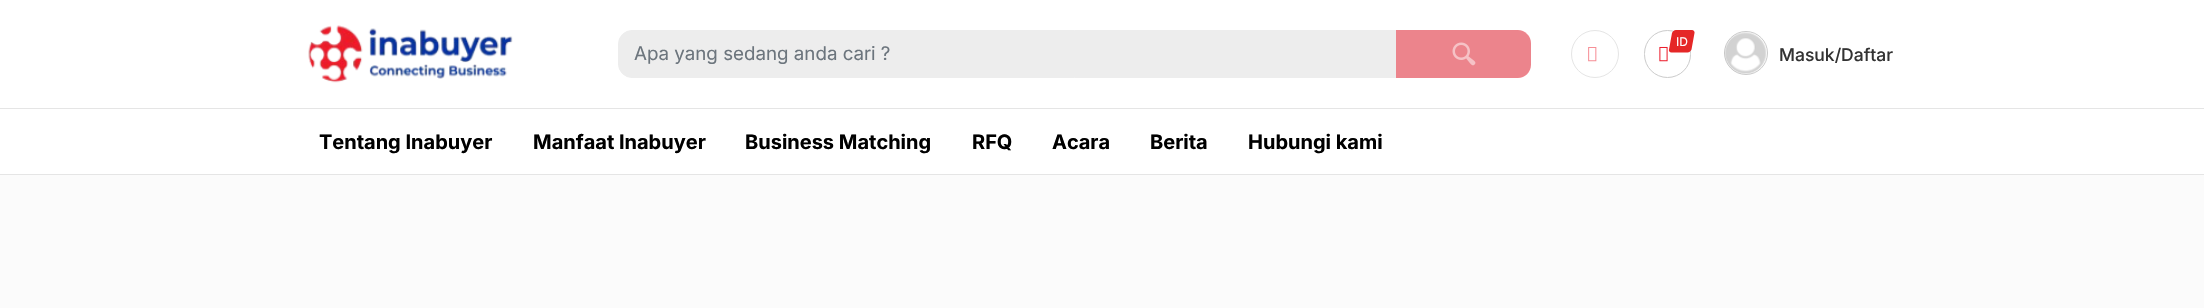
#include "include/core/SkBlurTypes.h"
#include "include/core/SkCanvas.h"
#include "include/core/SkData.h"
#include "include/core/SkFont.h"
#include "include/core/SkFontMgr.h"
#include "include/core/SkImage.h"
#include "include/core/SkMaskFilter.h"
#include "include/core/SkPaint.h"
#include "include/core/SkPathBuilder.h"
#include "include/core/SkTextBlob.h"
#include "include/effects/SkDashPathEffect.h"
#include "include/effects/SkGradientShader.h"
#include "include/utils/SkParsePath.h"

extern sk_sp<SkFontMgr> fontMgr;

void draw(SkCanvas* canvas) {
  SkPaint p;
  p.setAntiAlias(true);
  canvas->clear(SK_ColorWHITE);
  canvas->drawImageRect(SkImages::DeferredFromEncodedData(SkData::MakeFromFileName("images/1.png")), SkRect::MakeLTRB(308, 25, 513, 83), SkSamplingOptions());
  p.setColor(SkColorSetRGB(237, 237, 237));
  canvas->drawRoundRect(SkRect::MakeLTRB(618.5f, 30.5f, 1530.5f, 77.5f), 13.5f, 13.5f, p);
  p.setStyle(SkPaint::kStroke_Style);
  p.setStrokeWidth(1);
  canvas->drawRoundRect(SkRect::MakeLTRB(618.5f, 30.5f, 1530.5f, 77.5f), 13.5f, 13.5f, p);
  p.setStyle(SkPaint::kFill_Style);
  p.setColor(SkColorSetARGB(128, 236, 28, 43));
  canvas->drawPath(SkPathBuilder().moveTo(1396, 30).lineTo(1518, 30).cubicTo(1525, 30, 1531, 36, 1531, 43).lineTo(1531, 65).cubicTo(1531, 72, 1525, 78, 1518, 78).lineTo(1396, 78).close().detach(), p);
  canvas->drawImageRect(SkImages::DeferredFromEncodedData(SkData::MakeFromFileName("images/2.png")), SkRect::MakeLTRB(1452, 42, 1476, 66), SkSamplingOptions());
  p.setStyle(SkPaint::kStroke_Style);
  p.setColor(SkColorSetRGB(229, 229, 229));
  canvas->drawCircle(1595, 54, 23.5f, p);
  canvas->drawImageRect(SkImages::DeferredFromEncodedData(SkData::MakeFromFileName("images/3.png")), SkRect::MakeLTRB(1588, 47, 1597, 62), SkSamplingOptions());
  p.setColor(SkColorSetRGB(203, 203, 203));
  canvas->drawRoundRect(SkRect::MakeLTRB(1644.5f, 30.5f, 1690.5f, 77.5f), 23, 23, p);
  p.setStyle(SkPaint::kFill_Style);
  p.setColor(SkColorSetRGB(229, 39, 39));
  canvas->drawPath(SkPathBuilder().moveTo(1676, 30).lineTo(1692, 30).cubicTo(1693.5f, 30, 1695, 31.5f, 1694.5f, 33).lineTo(1691.5f, 49.5f).cubicTo(1691, 51, 1689.5f, 52.5f, 1687.5f, 52.5f).lineTo(1671.5f, 52.5f).cubicTo(1669.5f, 52.5f, 1668.5f, 51, 1669, 49.5f).lineTo(1672, 33).cubicTo(1672.5f, 31.5f, 1674, 30, 1676, 30).close().detach(), p);
  canvas->drawImageRect(SkImages::DeferredFromEncodedData(SkData::MakeFromFileName("images/4.png")), SkRect::MakeLTRB(1659, 46, 1668, 62), SkSamplingOptions());
  p.setStyle(SkPaint::kStroke_Style);
  p.setColor(SkColorSetRGB(203, 203, 203));
  canvas->drawCircle(1746, 53, 21.5f, p);
  canvas->drawImageRect(SkImages::DeferredFromEncodedData(SkData::MakeFromFileName("images/5.png")), SkRect::MakeLTRB(1724, 32, 1767, 74), SkSamplingOptions());
  p.setStyle(SkPaint::kFill_Style);
  p.setColor(SkColorSetRGB(229, 229, 229));
  canvas->drawRect(SkRect::MakeLTRB(0, 108, 2204, 109), p);
  canvas->drawRect(SkRect::MakeLTRB(0, 174, 2204, 175), p);
  p.setColor(SkColorSetRGB(251, 251, 251));
  canvas->drawRect(SkRect::MakeLTRB(0, 175, 2204, 308), p);
  SkFont font1(fontMgr->matchFamilyStyle("Inter", SkFontStyle::Normal()), 18.75f);
  font1.setSubpixel(true);
  p.setColor(SkColorSetRGB(108, 117, 125));
  canvas->drawString("Apa yang sedang anda cari ?", 634, 60, font1, p);
  SkFont font2(fontMgr->matchFamilyStyle("Inter", SkFontStyle::Normal()), 12);
  font2.setSubpixel(true);
  p.setColor(SK_ColorWHITE);
  canvas->drawString("ID", 1676, 46, font2, p);
  SkFont font3(fontMgr->matchFamilyStyle("Inter", SkFontStyle(500, SkFontStyle::kNormal_Width, SkFontStyle::kUpright_Slant)), 17.5f);
  font3.setSubpixel(true);
  p.setColor(SkColorSetRGB(51, 51, 51));
  canvas->drawString("Masuk/Daftar", 1779, 61, font3, p);
  SkFont font4(fontMgr->matchFamilyStyle("Inter", SkFontStyle::Bold()), 20);
  font4.setSubpixel(true);
  p.setColor(SK_ColorBLACK);
  canvas->drawString("Tentang Inabuyer", 319, 149, font4, p);
  canvas->drawString("Manfaat Inabuyer", 533, 149, font4, p);
  canvas->drawString("Business Matching", 745, 149, font4, p);
  canvas->drawString("RFQ", 972, 149, font4, p);
  canvas->drawString("Acara", 1052, 149, font4, p);
  canvas->drawString("Berita", 1150, 149, font4, p);
  canvas->drawString("Hubungi kami", 1248, 149, font4, p);
}
